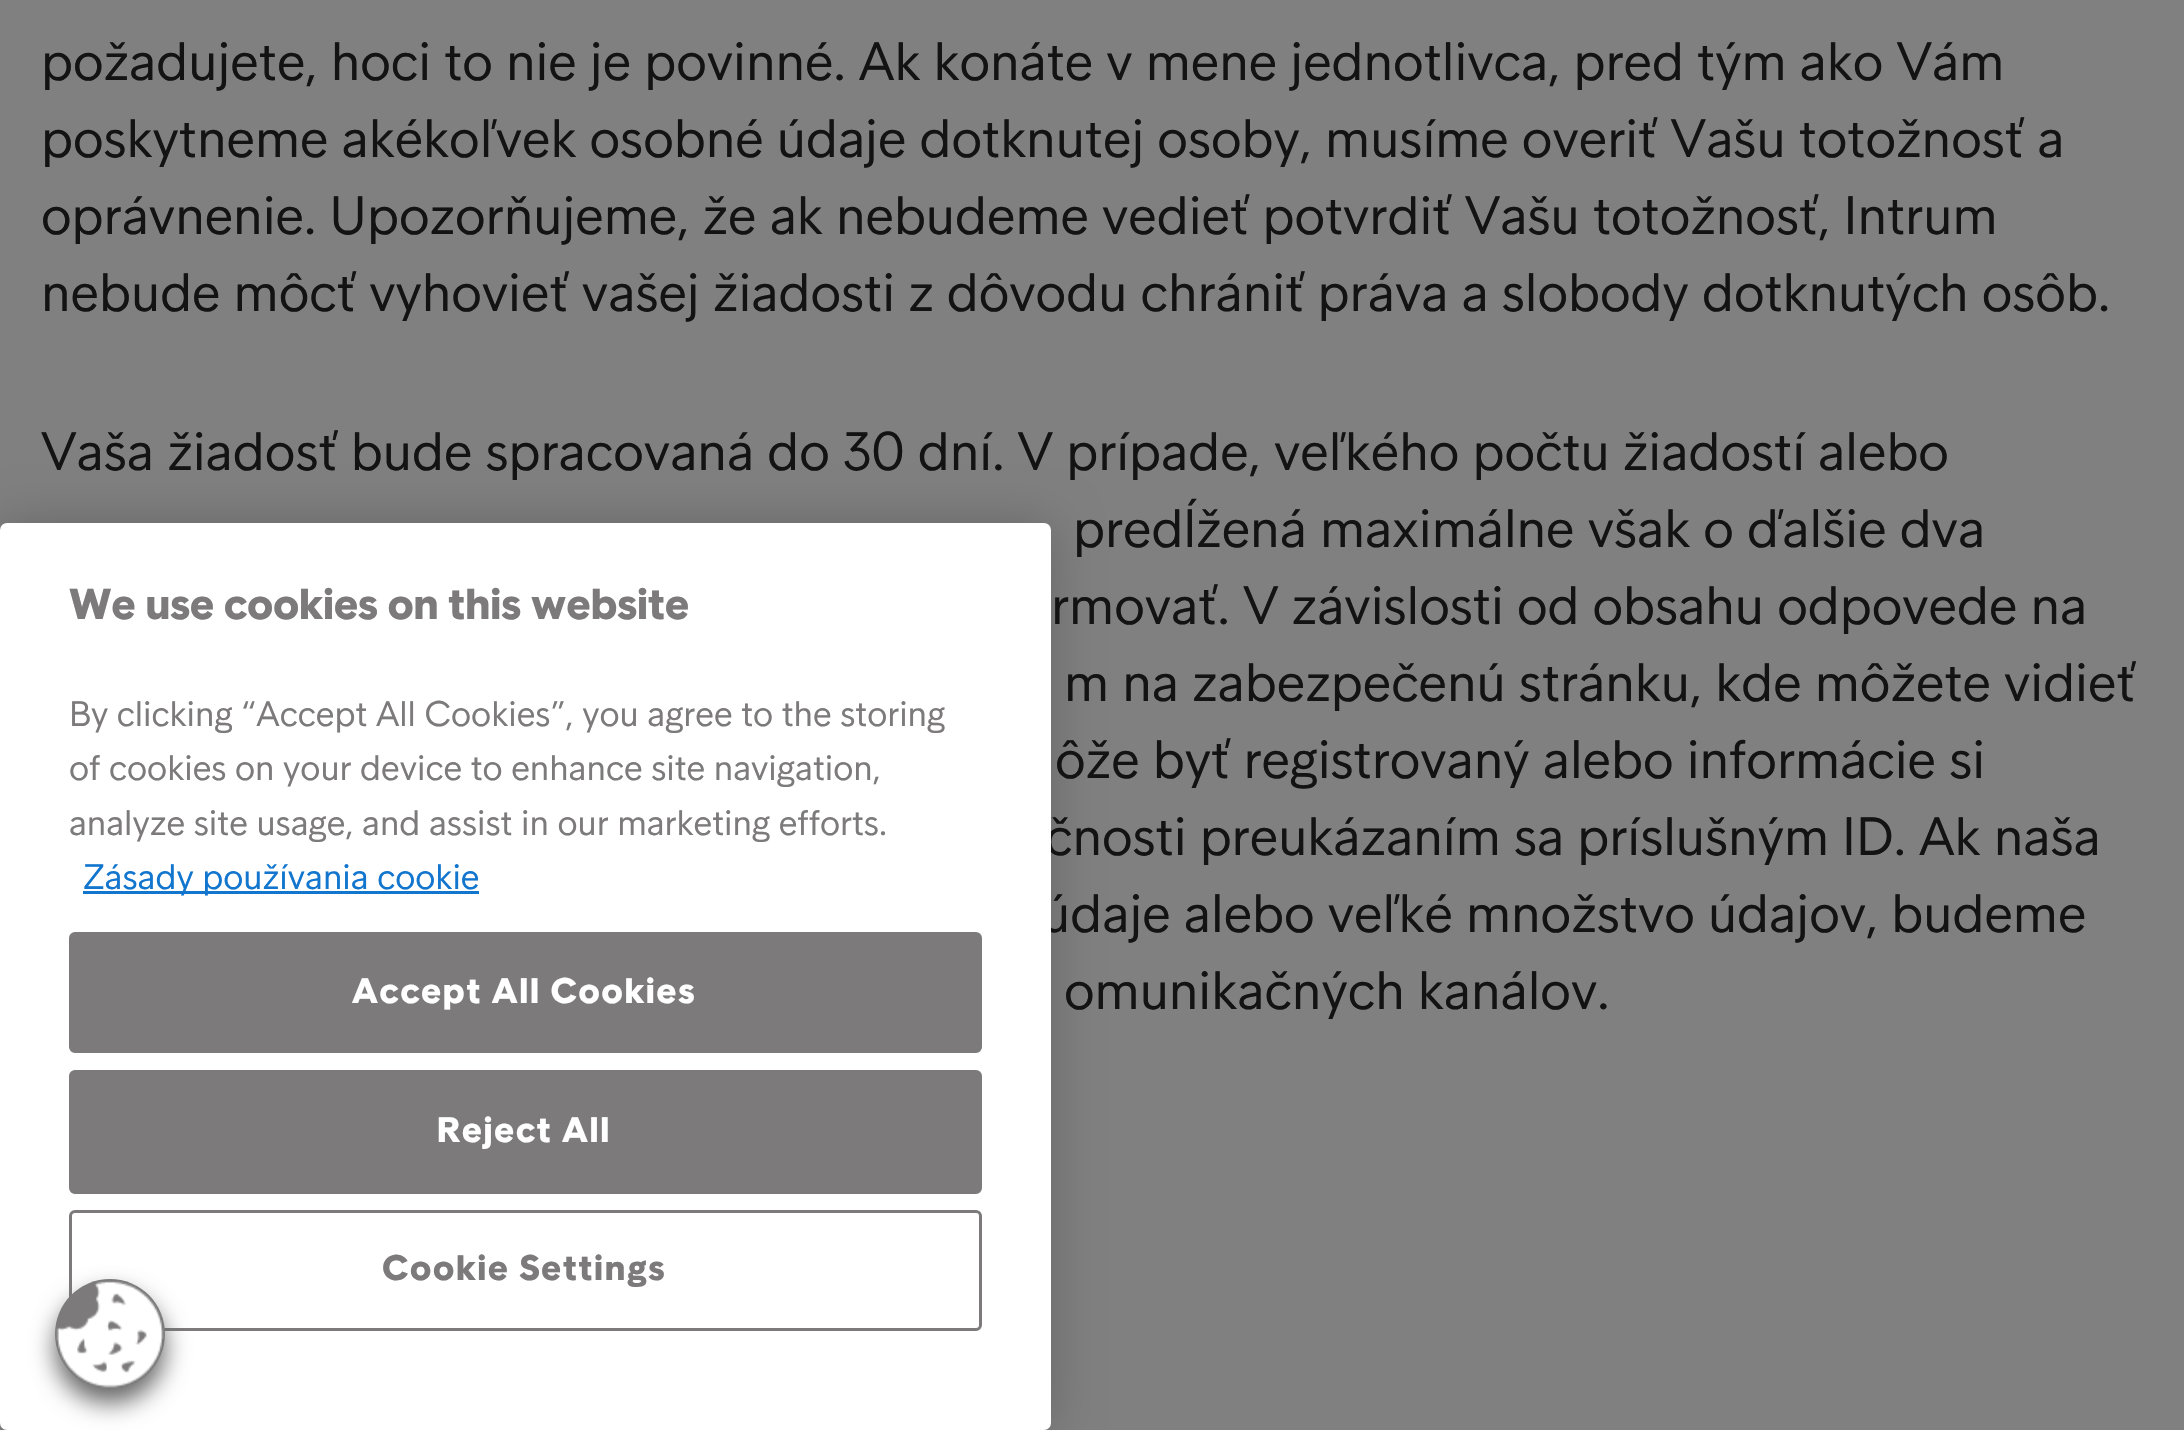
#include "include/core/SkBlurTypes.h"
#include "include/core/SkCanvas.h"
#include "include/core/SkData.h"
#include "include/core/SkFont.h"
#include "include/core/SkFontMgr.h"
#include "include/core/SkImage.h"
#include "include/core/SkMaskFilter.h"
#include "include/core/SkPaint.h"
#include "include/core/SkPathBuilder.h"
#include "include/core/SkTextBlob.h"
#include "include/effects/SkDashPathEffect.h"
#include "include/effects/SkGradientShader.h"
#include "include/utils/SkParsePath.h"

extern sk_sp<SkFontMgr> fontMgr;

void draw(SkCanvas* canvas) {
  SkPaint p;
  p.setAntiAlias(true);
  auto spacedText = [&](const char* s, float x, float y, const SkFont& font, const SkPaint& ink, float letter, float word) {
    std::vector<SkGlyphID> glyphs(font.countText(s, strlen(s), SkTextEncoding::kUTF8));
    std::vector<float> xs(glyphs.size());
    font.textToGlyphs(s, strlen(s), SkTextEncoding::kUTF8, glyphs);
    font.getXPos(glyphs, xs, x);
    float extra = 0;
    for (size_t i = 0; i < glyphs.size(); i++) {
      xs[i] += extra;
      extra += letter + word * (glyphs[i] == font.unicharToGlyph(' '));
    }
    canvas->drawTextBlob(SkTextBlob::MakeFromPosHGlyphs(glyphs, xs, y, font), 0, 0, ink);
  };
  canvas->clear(SkColorSetRGB(128, 128, 128));
  p.setColor(SkColorSetARGB(51, 0, 0, 0));
  p.setMaskFilter(SkMaskFilter::MakeBlur(kNormal_SkBlurStyle, 25));
  canvas->drawRoundRect(SkRect::MakeLTRB(0, 523, 1051, 1430), 7, 7, p);
  p.setMaskFilter(nullptr);
  SkFont font1(fontMgr->matchFamilyStyle("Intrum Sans", SkFontStyle::Normal()), 55);
  font1.setSubpixel(true);
  p.setColor(SkColorSetRGB(19, 19, 19));
  canvas->drawString("požadujete, hoci to nie je povinné. Ak konáte v mene jednotlivca, pred tým ako Vám", 41, 80, font1, p);
  canvas->drawString("poskytneme akékoľvek osobné údaje dotknutej osoby, musíme overiť Vašu totožnosť a", 41, 157, font1, p);
  canvas->drawString("oprávnenie. Upozorňujeme, že ak nebudeme vedieť potvrdiť Vašu totožnosť, Intrum", 41, 234, font1, p);
  canvas->drawString("nebude môcť vyhovieť vašej žiadosti z dôvodu chrániť práva a slobody dotknutých osôb.", 41, 311, font1, p);
  canvas->drawString("Vaša žiadosť bude spracovaná do 30 dní. V prípade, veľkého počtu žiadostí alebo", 41, 470, font1, p);
  canvas->drawString("predĺžená maximálne však o ďalšie dva", 1073, 547, font1, p);
  canvas->drawString("rmovať. V závislosti od obsahu odpovede na", 1051, 624, font1, p);
  canvas->drawString("m na zabezpečenú stránku, kde môžete vidieť", 1064, 701, font1, p);
  canvas->drawString("ôže byť registrovaný alebo informácie si", 1055, 778, font1, p);
  canvas->drawString("čnosti preukázaním sa príslušným ID. Ak naša", 1045, 855, font1, p);
  canvas->drawString("údaje alebo veľké množstvo údajov, budeme", 1041, 932, font1, p);
  canvas->drawString("omunikačných kanálov.", 1064, 1009, font1, p);
  p.setColor(SK_ColorWHITE);
  canvas->drawRoundRect(SkRect::MakeLTRB(0, 523, 1051, 1430), 7, 7, p);
  SkFont font2(fontMgr->matchFamilyStyle("Intrum Sans", SkFontStyle::Bold()), 44);
  font2.setSubpixel(true);
  p.setColor(SkColorSetRGB(124, 122, 122));
  canvas->drawString("We use cookies on this website", 69, 619, font2, p);
  SkFont font3(fontMgr->matchFamilyStyle("Intrum Sans", SkFontStyle::Normal()), 36.1f);
  font3.setSubpixel(true);
  canvas->drawString("By clicking “Accept All Cookies”, you agree to the storing", 69, 726, font3, p);
  canvas->drawString("of cookies on your device to enhance site navigation,", 69, 780, font3, p);
  canvas->drawString("analyze site usage, and assist in our marketing efforts.", 69, 835, font3, p);
  p.setColor(SkColorSetRGB(18, 118, 206));
  canvas->drawRect(SkRect::MakeLTRB(83, 891, 479, 894), p);
  canvas->drawString("Zásady používania cookie", 83, 889, font3, p);
  p.setColor(SkColorSetRGB(124, 122, 122));
  canvas->drawRoundRect(SkRect::MakeLTRB(70.5f, 933.5f, 980.5f, 1051.5f), 4.5f, 4.5f, p);
  p.setStyle(SkPaint::kStroke_Style);
  p.setStrokeWidth(3);
  canvas->drawRoundRect(SkRect::MakeLTRB(70.5f, 933.5f, 980.5f, 1051.5f), 4.5f, 4.5f, p);
  SkFont font4(fontMgr->matchFamilyStyle("Intrum Sans", SkFontStyle::Bold()), 36.1f);
  font4.setSubpixel(true);
  p.setStyle(SkPaint::kFill_Style);
  p.setColor(SK_ColorWHITE);
  spacedText("Accept All Cookies", 352, 1003, font4, p, 1.75f, 0);
  p.setColor(SkColorSetRGB(124, 122, 122));
  canvas->drawRoundRect(SkRect::MakeLTRB(70.5f, 1071.5f, 980.5f, 1192.5f), 4.5f, 4.5f, p);
  p.setStyle(SkPaint::kStroke_Style);
  canvas->drawRoundRect(SkRect::MakeLTRB(70.5f, 1071.5f, 980.5f, 1192.5f), 4.5f, 4.5f, p);
  p.setStyle(SkPaint::kFill_Style);
  p.setColor(SK_ColorWHITE);
  spacedText("Reject All", 437, 1142, font4, p, 1.75f, 0);
  p.setStyle(SkPaint::kStroke_Style);
  p.setColor(SkColorSetRGB(124, 122, 122));
  canvas->drawRoundRect(SkRect::MakeLTRB(70.5f, 1211.5f, 980.5f, 1329.5f), 4.5f, 4.5f, p);
  p.setStyle(SkPaint::kFill_Style);
  spacedText("Cookie Settings", 382, 1280, font4, p, 1.75f, 0);
  p.setColor(SkColorSetRGB(102, 102, 102));
  p.setMaskFilter(SkMaskFilter::MakeBlur(kNormal_SkBlurStyle, 12.5f));
  canvas->drawRoundRect(SkRect::MakeLTRB(55, 1293, 165, 1403), 55, 55, p);
  p.setMaskFilter(nullptr);
  p.setColor(SkColorSetRGB(124, 122, 122));
  canvas->drawCircle(110, 1334, 55, p);
  canvas->drawImageRect(SkImages::DeferredFromEncodedData(SkData::MakeFromFileName("images/1.png")), SkRect::MakeLTRB(56, 1281, 164, 1388), SkSamplingOptions());
}
